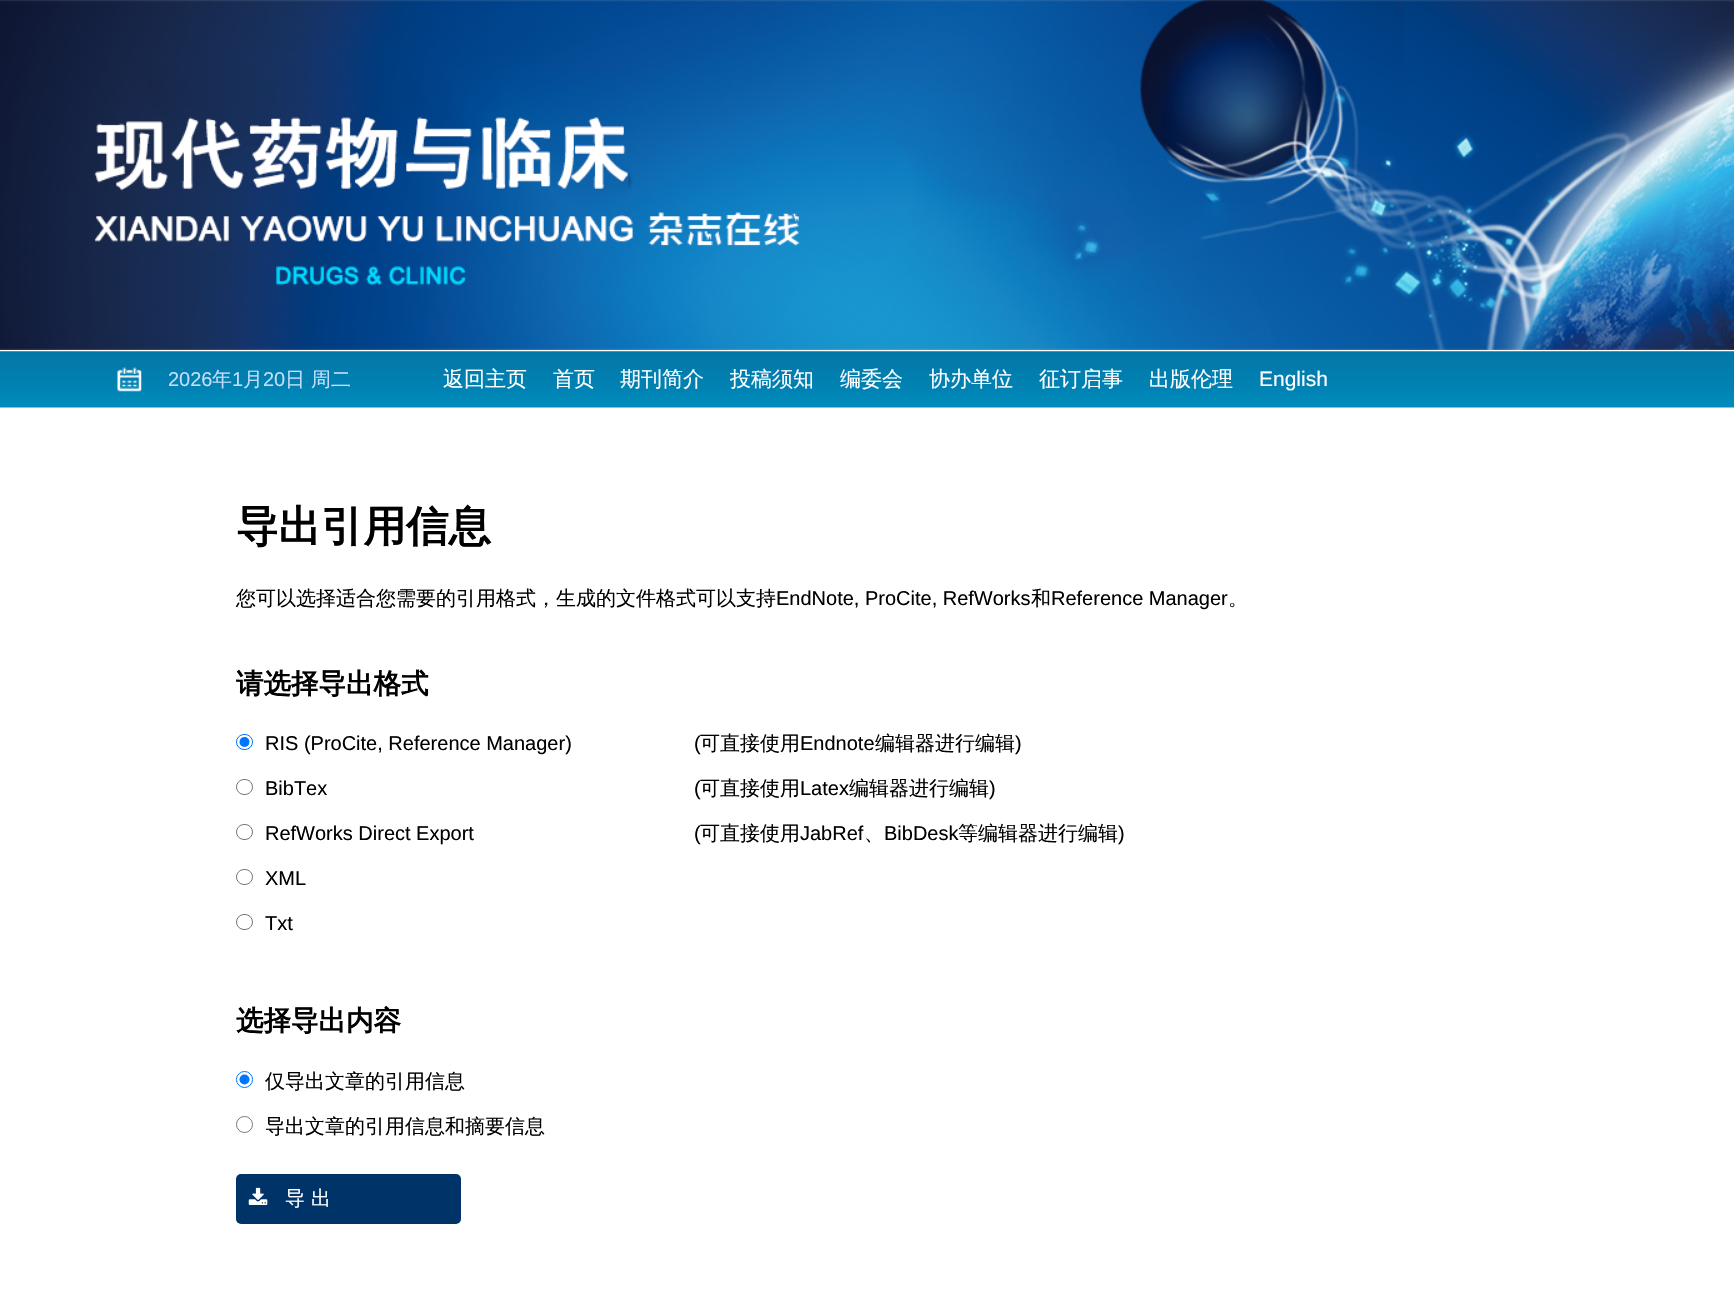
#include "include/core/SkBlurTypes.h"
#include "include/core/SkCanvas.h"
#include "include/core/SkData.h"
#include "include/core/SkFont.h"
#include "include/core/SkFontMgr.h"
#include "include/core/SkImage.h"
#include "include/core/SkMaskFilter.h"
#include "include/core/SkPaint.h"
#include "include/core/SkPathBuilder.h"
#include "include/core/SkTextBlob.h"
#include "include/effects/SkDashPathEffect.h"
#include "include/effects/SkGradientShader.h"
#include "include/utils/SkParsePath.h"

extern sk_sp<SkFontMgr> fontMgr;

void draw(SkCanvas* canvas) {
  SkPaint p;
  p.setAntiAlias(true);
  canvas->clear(SK_ColorWHITE);
  canvas->drawImageRect(SkImages::DeferredFromEncodedData(SkData::MakeFromFileName("images/1.png")), SkRect::MakeLTRB(0, 0, 1734, 350), SkSamplingOptions());
  canvas->drawImageRect(SkImages::DeferredFromEncodedData(SkData::MakeFromFileName("images/2.png")), SkRect::MakeLTRB(0, 351, 1734, 408), SkSamplingOptions());
  canvas->drawImageRect(SkImages::DeferredFromEncodedData(SkData::MakeFromFileName("images/3.png")), SkRect::MakeLTRB(117, 367, 142, 392), SkSamplingOptions());
  p.setStyle(SkPaint::kStroke_Style);
  p.setStrokeWidth(1);
  p.setColor(SkColorSetRGB(0, 117, 255));
  canvas->drawRoundRect(SkRect::MakeLTRB(236.5f, 734.5f, 252.5f, 749.5f), 7.5f, 7.5f, p);
  p.setStyle(SkPaint::kFill_Style);
  canvas->drawCircle(244.5f, 742, 5, p);
  p.setStyle(SkPaint::kStroke_Style);
  p.setColor(SkColorSetRGB(118, 118, 118));
  canvas->drawRoundRect(SkRect::MakeLTRB(236.5f, 779.5f, 252.5f, 794.5f), 7.5f, 7.5f, p);
  canvas->drawRoundRect(SkRect::MakeLTRB(236.5f, 824.5f, 252.5f, 839.5f), 7.5f, 7.5f, p);
  canvas->drawRoundRect(SkRect::MakeLTRB(236.5f, 869.5f, 252.5f, 884.5f), 7.5f, 7.5f, p);
  canvas->drawRoundRect(SkRect::MakeLTRB(236.5f, 914.5f, 252.5f, 929.5f), 7.5f, 7.5f, p);
  p.setColor(SkColorSetRGB(0, 117, 255));
  canvas->drawCircle(244.5f, 1079.5f, 8, p);
  p.setStyle(SkPaint::kFill_Style);
  canvas->drawCircle(244.5f, 1079.5f, 5, p);
  p.setStyle(SkPaint::kStroke_Style);
  p.setColor(SkColorSetRGB(118, 118, 118));
  canvas->drawCircle(244.5f, 1124.5f, 8, p);
  p.setStyle(SkPaint::kFill_Style);
  p.setColor(SkColorSetRGB(0, 52, 105));
  canvas->drawRoundRect(SkRect::MakeLTRB(236, 1174, 461, 1224), 5, 5, p);
  canvas->drawImageRect(SkImages::DeferredFromEncodedData(SkData::MakeFromFileName("images/4.png")), SkRect::MakeLTRB(248, 1187, 268, 1205), SkSamplingOptions());
  SkFont font1(fontMgr->matchFamilyStyle("Liberation Sans", SkFontStyle::Normal()), 20);
  font1.setSubpixel(true);
  p.setColor(SkColorSetRGB(195, 222, 249));
  canvas->drawString("2026", 168, 386, font1, p);
  SkFont font2(fontMgr->matchFamilyStyle("WenQuanYi Zen Hei", SkFontStyle(500, SkFontStyle::kNormal_Width, SkFontStyle::kUpright_Slant)), 20);
  font2.setSubpixel(true);
  canvas->drawString("年", 212, 386, font2, p);
  canvas->drawString("1", 232, 386, font1, p);
  canvas->drawString("月", 243, 386, font2, p);
  canvas->drawString("20", 263, 386, font1, p);
  canvas->drawString("日 周二", 285, 386, font2, p);
  SkFont font3(fontMgr->matchFamilyStyle("WenQuanYi Zen Hei", SkFontStyle(500, SkFontStyle::kNormal_Width, SkFontStyle::kUpright_Slant)), 21);
  font3.setSubpixel(true);
  p.setColor(SK_ColorWHITE);
  canvas->drawString("返回主页", 443, 386, font3, p);
  canvas->drawString("首页", 553, 386, font3, p);
  canvas->drawString("期刊简介", 620, 386, font3, p);
  canvas->drawString("投稿须知", 730, 386, font3, p);
  canvas->drawString("编委会", 840, 386, font3, p);
  canvas->drawString("协办单位", 929, 386, font3, p);
  canvas->drawString("征订启事", 1039, 386, font3, p);
  canvas->drawString("出版伦理", 1149, 386, font3, p);
  SkFont font4(fontMgr->matchFamilyStyle("Liberation Sans", SkFontStyle::Normal()), 21);
  font4.setSubpixel(true);
  canvas->drawString("English", 1259, 386, font4, p);
  SkFont font5(fontMgr->matchFamilyStyle("WenQuanYi Zen Hei", SkFontStyle::Bold()), 42.5f);
  font5.setSubpixel(true);
  p.setColor(SK_ColorBLACK);
  canvas->drawString("导出引用信息", 236, 541, font5, p);
  canvas->drawString("您可以选择适合您需要的引用格式，生成的文件格式可以支持", 236, 605, font2, p);
  canvas->drawString("EndNote, ProCite, RefWorks", 776, 605, font1, p);
  canvas->drawString("和", 1031, 605, font2, p);
  canvas->drawString("Reference Manager", 1051, 605, font1, p);
  canvas->drawString("。", 1228, 605, font2, p);
  SkFont font6(fontMgr->matchFamilyStyle("WenQuanYi Zen Hei", SkFontStyle::Bold()), 27.5f);
  font6.setSubpixel(true);
  canvas->drawString("请选择导出格式", 236, 693, font6, p);
  canvas->drawString("RIS (ProCite, Reference Manager)", 265, 750, font1, p);
  canvas->drawString("(", 694, 750, font1, p);
  canvas->drawString("可直接使用", 700, 750, font2, p);
  canvas->drawString("Endnote", 800, 750, font1, p);
  canvas->drawString("编辑器进行编辑", 875, 750, font2, p);
  canvas->drawString(")", 1015, 750, font1, p);
  canvas->drawString("BibTex", 265, 795, font1, p);
  canvas->drawString("(", 694, 795, font1, p);
  canvas->drawString("可直接使用", 700, 795, font2, p);
  canvas->drawString("Latex", 800, 795, font1, p);
  canvas->drawString("编辑器进行编辑", 849, 795, font2, p);
  canvas->drawString(")", 989, 795, font1, p);
  canvas->drawString("RefWorks Direct Export", 265, 840, font1, p);
  canvas->drawString("(", 694, 840, font1, p);
  canvas->drawString("可直接使用", 700, 840, font2, p);
  canvas->drawString("JabRef", 800, 840, font1, p);
  canvas->drawString("、", 864, 840, font2, p);
  canvas->drawString("BibDesk", 884, 840, font1, p);
  canvas->drawString("等编辑器进行编辑", 958, 840, font2, p);
  canvas->drawString(")", 1118, 840, font1, p);
  canvas->drawString("XML", 265, 885, font1, p);
  canvas->drawString("Txt", 265, 930, font1, p);
  canvas->drawString("选择导出内容", 236, 1030, font6, p);
  canvas->drawString("仅导出文章的引用信息", 265, 1088, font2, p);
  canvas->drawString("导出文章的引用信息和摘要信息", 265, 1133, font2, p);
  p.setColor(SK_ColorWHITE);
  canvas->drawString("导 出", 285, 1205, font2, p);
}
